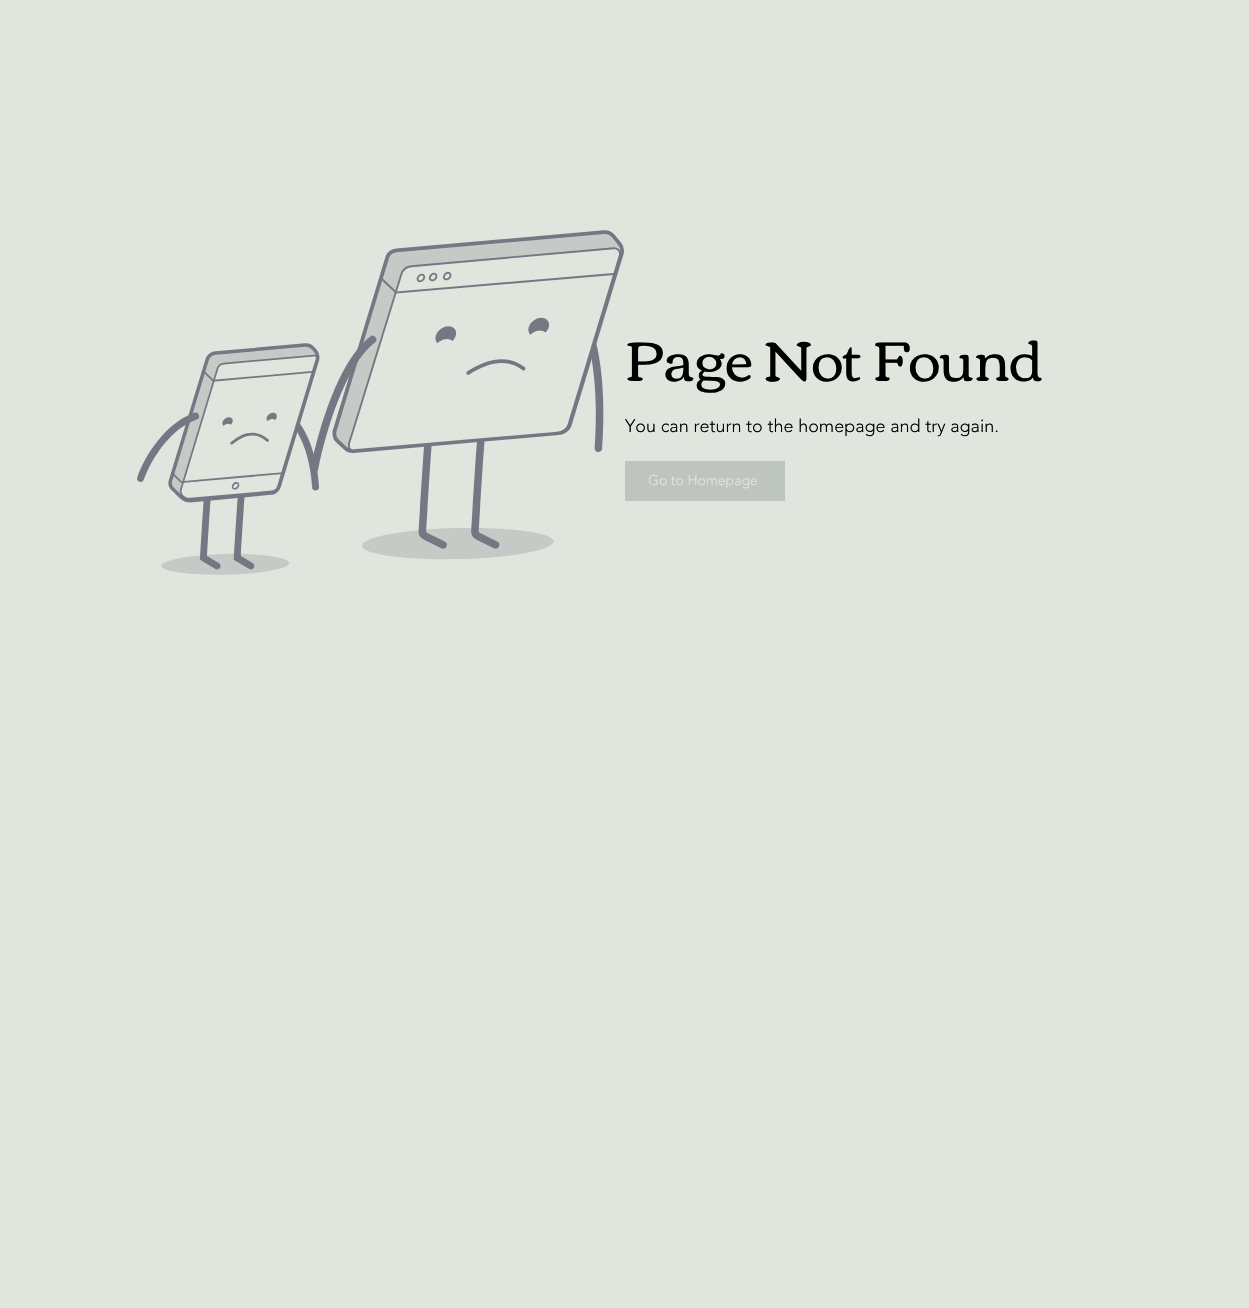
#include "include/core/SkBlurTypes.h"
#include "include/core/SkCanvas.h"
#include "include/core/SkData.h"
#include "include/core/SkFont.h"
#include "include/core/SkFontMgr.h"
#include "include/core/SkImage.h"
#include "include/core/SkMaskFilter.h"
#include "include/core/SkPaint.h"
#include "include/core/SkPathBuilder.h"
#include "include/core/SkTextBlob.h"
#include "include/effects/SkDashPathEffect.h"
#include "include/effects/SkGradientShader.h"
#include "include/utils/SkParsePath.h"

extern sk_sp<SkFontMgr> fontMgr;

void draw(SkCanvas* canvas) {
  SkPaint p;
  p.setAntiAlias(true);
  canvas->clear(SkColorSetRGB(224, 229, 222));
  canvas->drawImageRect(SkImages::DeferredFromEncodedData(SkData::MakeFromFileName("images/1.png")), SkRect::MakeLTRB(137, 230, 624, 575), SkSamplingOptions());
  p.setColor(SkColorSetRGB(190, 197, 190));
  canvas->drawRect(SkRect::MakeLTRB(625, 461, 785, 501), p);
  SkFont font1(fontMgr->matchFamilyStyle("Corben", SkFontStyle::Normal()), 56);
  font1.setSubpixel(true);
  p.setColor(SK_ColorBLACK);
  canvas->drawString("Page Not Found", 625, 381, font1, p);
  SkFont font2(fontMgr->matchFamilyStyle("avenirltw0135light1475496", SkFontStyle(300, SkFontStyle::kNormal_Width, SkFontStyle::kUpright_Slant)), 18);
  font2.setSubpixel(true);
  canvas->drawString("You can return to the homepage and try again.", 625, 432, font2, p);
  SkFont font3(fontMgr->matchFamilyStyle("avenirltw0135light1475496", SkFontStyle(300, SkFontStyle::kNormal_Width, SkFontStyle::kUpright_Slant)), 14);
  font3.setSubpixel(true);
  p.setColor(SkColorSetRGB(224, 229, 222));
  canvas->drawString("Go to Homepage", 648, 485, font3, p);
}
